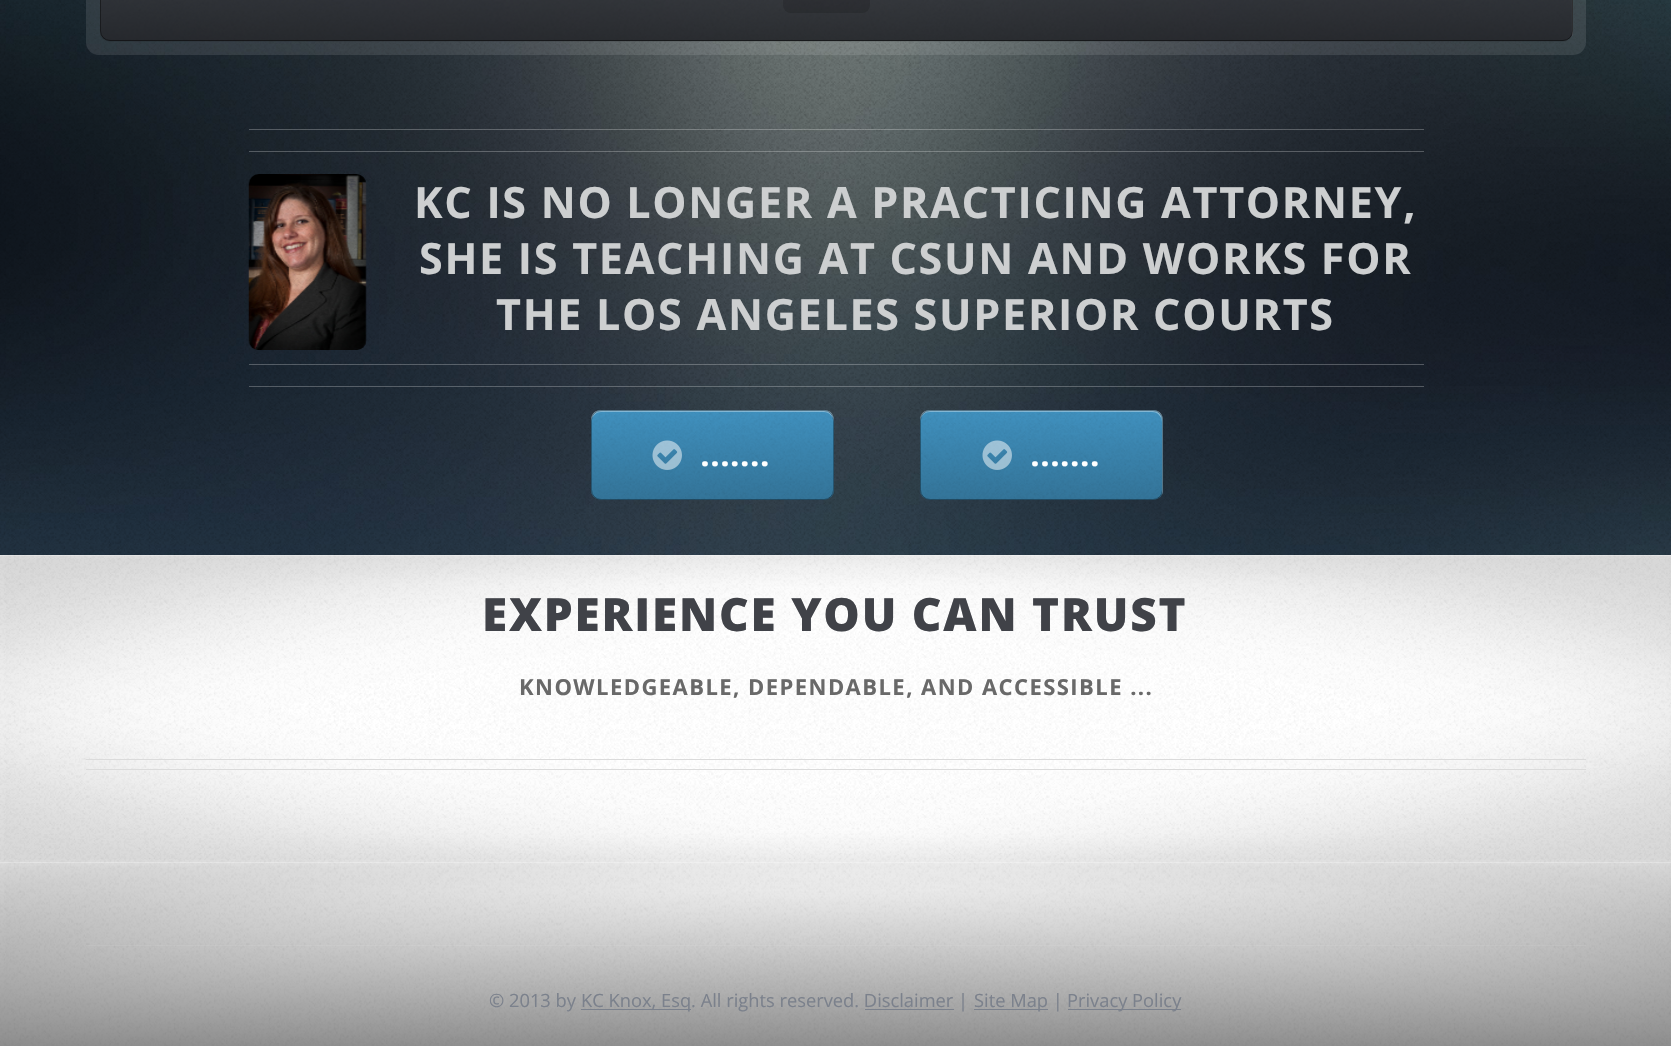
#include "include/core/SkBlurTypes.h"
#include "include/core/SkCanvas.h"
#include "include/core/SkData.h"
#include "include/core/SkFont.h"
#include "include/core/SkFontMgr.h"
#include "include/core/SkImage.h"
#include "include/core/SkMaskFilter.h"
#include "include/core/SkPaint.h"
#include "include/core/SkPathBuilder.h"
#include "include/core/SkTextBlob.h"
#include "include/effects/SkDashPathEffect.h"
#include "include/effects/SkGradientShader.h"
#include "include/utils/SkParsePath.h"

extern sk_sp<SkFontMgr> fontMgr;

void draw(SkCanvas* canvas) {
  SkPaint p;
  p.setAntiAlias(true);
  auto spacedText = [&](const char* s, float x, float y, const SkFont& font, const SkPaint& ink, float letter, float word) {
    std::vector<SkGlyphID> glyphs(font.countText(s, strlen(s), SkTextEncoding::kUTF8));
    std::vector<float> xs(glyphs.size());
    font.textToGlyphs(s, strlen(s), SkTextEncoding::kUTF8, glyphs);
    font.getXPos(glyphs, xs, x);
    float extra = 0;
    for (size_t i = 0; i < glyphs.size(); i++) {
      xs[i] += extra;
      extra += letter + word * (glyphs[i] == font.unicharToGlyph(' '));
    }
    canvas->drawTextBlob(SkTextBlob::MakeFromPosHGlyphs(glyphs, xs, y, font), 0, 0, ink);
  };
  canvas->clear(SK_ColorWHITE);
  canvas->drawImageRect(SkImages::DeferredFromEncodedData(SkData::MakeFromFileName("images/1.png")), SkRect::MakeLTRB(0, 0, 1671, 555), SkSamplingOptions());
  p.setColor(SkColorSetARGB(26, 255, 255, 255));
  canvas->drawRoundRect(SkRect::MakeLTRB(86, -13, 1586, 55), 13, 13, p);
  p.setColor(SkColorSetARGB(230, 59, 62, 69));
  canvas->drawRoundRect(SkRect::MakeLTRB(100, -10, 1573, 41), 10, 10, p);
  canvas->drawImageRect(SkImages::DeferredFromEncodedData(SkData::MakeFromFileName("images/2.png")), SkRect::MakeLTRB(100, 0, 1573, 42), SkSamplingOptions());
  p.setColor(SkColorSetARGB(38, 255, 255, 255));
  canvas->drawPath(SkPathBuilder().moveTo(110, -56).lineTo(1562, -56).cubicTo(1568, -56, 1572, -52, 1572, -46).lineTo(1572, 36).cubicTo(1573, 34, 1573, 33, 1573, 31).lineTo(1573, -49).cubicTo(1573, -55, 1569, -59, 1563, -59).lineTo(110, -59).cubicTo(104, -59, 100, -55, 100, -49).lineTo(100, -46).cubicTo(100, -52, 104, -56, 110, -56).close().detach(), p);
  p.setStyle(SkPaint::kStroke_Style);
  p.setStrokeWidth(1);
  p.setColor(SkColorSetARGB(115, 0, 0, 0));
  canvas->drawRoundRect(SkRect::MakeLTRB(100.5f, -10.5f, 1572.5f, 40.5f), 9.5f, 9.5f, p);
  p.setStyle(SkPaint::kFill_Style);
  p.setColor(SkColorSetARGB(38, 0, 0, 0));
  canvas->drawRoundRect(SkRect::MakeLTRB(783, -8, 870, 13), 8, 8, p);
  p.setColor(SkColorSetARGB(64, 255, 255, 255));
  canvas->drawRect(SkRect::MakeLTRB(249, 129, 1424, 130), p);
  canvas->drawRect(SkRect::MakeLTRB(249, 386, 1424, 387), p);
  canvas->drawRect(SkRect::MakeLTRB(249, 151, 1424, 152), p);
  canvas->drawImageRect(SkImages::DeferredFromEncodedData(SkData::MakeFromFileName("images/3.png")), SkRect::MakeLTRB(248, 174, 367, 350), SkSamplingOptions());
  canvas->drawImageRect(SkImages::DeferredFromEncodedData(SkData::MakeFromFileName("images/4.png")), SkRect::MakeLTRB(249, 177, 366, 344), SkSamplingOptions());
  canvas->drawRect(SkRect::MakeLTRB(249, 364, 1424, 365), p);
  p.setColor(SkColorSetRGB(64, 145, 191));
  canvas->drawRoundRect(SkRect::MakeLTRB(591, 410, 834, 500), 10, 10, p);
  canvas->drawImageRect(SkImages::DeferredFromEncodedData(SkData::MakeFromFileName("images/5.png")), SkRect::MakeLTRB(591, 410, 834, 500), SkSamplingOptions());
  p.setColor(SkColorSetARGB(89, 255, 255, 255));
  canvas->drawPath(SkPathBuilder().moveTo(601, 412).lineTo(824, 412).cubicTo(829, 412, 834, 417, 834, 422).lineTo(834, 420).cubicTo(834, 414, 830, 410, 824, 410).lineTo(601, 410).cubicTo(595, 410, 591, 414, 591, 420).lineTo(591, 422).cubicTo(591, 417, 596, 412, 601, 412).close().detach(), p);
  p.setStyle(SkPaint::kStroke_Style);
  p.setColor(SkColorSetARGB(89, 0, 0, 0));
  canvas->drawRoundRect(SkRect::MakeLTRB(591.5f, 410.5f, 833.5f, 499.5f), 9.5f, 9.5f, p);
  canvas->drawImageRect(SkImages::DeferredFromEncodedData(SkData::MakeFromFileName("images/6.png")), SkRect::MakeLTRB(652, 440, 682, 470), SkSamplingOptions());
  p.setStyle(SkPaint::kFill_Style);
  p.setColor(SkColorSetRGB(64, 145, 191));
  canvas->drawRoundRect(SkRect::MakeLTRB(920, 410, 1163, 500), 10, 10, p);
  canvas->drawImageRect(SkImages::DeferredFromEncodedData(SkData::MakeFromFileName("images/7.png")), SkRect::MakeLTRB(920, 410, 1163, 500), SkSamplingOptions());
  p.setColor(SkColorSetARGB(89, 255, 255, 255));
  canvas->drawPath(SkPathBuilder().moveTo(930, 412).lineTo(1152, 412).cubicTo(1158, 412, 1162, 417, 1162, 422).lineTo(1162, 492).lineTo(1162, 495).cubicTo(1162, 494, 1163, 492, 1163, 490).lineTo(1163, 420).cubicTo(1163, 414, 1159, 410, 1153, 410).lineTo(930, 410).cubicTo(924, 410, 920, 414, 920, 420).lineTo(920, 422).cubicTo(920, 417, 924, 412, 930, 412).close().detach(), p);
  p.setStyle(SkPaint::kStroke_Style);
  p.setColor(SkColorSetARGB(89, 0, 0, 0));
  canvas->drawRoundRect(SkRect::MakeLTRB(920.5f, 410.5f, 1162.5f, 499.5f), 9.5f, 9.5f, p);
  canvas->drawImageRect(SkImages::DeferredFromEncodedData(SkData::MakeFromFileName("images/8.png")), SkRect::MakeLTRB(982, 440, 1012, 470), SkSamplingOptions());
  canvas->drawImageRect(SkImages::DeferredFromEncodedData(SkData::MakeFromFileName("images/9.png")), SkRect::MakeLTRB(0, 555, 1671, 863), SkSamplingOptions());
  p.setStyle(SkPaint::kFill_Style);
  p.setColor(SkColorSetRGB(219, 219, 219));
  canvas->drawRect(SkRect::MakeLTRB(86, 769, 1586, 770), p);
  canvas->drawRect(SkRect::MakeLTRB(86, 759, 1586, 760), p);
  canvas->drawImageRect(SkImages::DeferredFromEncodedData(SkData::MakeFromFileName("images/10.png")), SkRect::MakeLTRB(0, 863, 1671, 1046), SkSamplingOptions());
  p.setColor(SkColorSetARGB(18, 255, 255, 255));
  canvas->drawRect(SkRect::MakeLTRB(86, 945, 1586, 946), p);
  p.setColor(SkColorSetRGB(123, 129, 140));
  canvas->drawRect(SkRect::MakeLTRB(581, 1009, 691, 1010), p);
  canvas->drawRect(SkRect::MakeLTRB(974, 1009, 1048, 1010), p);
  canvas->drawRect(SkRect::MakeLTRB(1068, 1009, 1181, 1010), p);
  canvas->drawRect(SkRect::MakeLTRB(865, 1009, 954, 1010), p);
  SkFont font1(fontMgr->matchFamilyStyle("Open Sans", SkFontStyle::Bold()), 43.1f);
  font1.setSubpixel(true);
  p.setColor(SkColorSetRGB(205, 207, 208));
  spacedText("KC IS NO LONGER A PRACTICING ATTORNEY,", 414, 218, font1, p, 1.7f, 0);
  spacedText("SHE IS TEACHING AT CSUN AND WORKS FOR", 419, 274, font1, p, 1.7f, 0);
  spacedText("THE LOS ANGELES SUPERIOR COURTS", 496, 330, font1, p, 1.7f, 0);
  SkFont font2(fontMgr->matchFamilyStyle("Open Sans", SkFontStyle(800, SkFontStyle::kNormal_Width, SkFontStyle::kUpright_Slant)), 27.5f);
  font2.setSubpixel(true);
  p.setColor(SK_ColorWHITE);
  spacedText(".......", 701, 466, font2, p, 2, 0);
  spacedText(".......", 1031, 466, font2, p, 2, 0);
  SkFont font3(fontMgr->matchFamilyStyle("Open Sans", SkFontStyle(800, SkFontStyle::kNormal_Width, SkFontStyle::kUpright_Slant)), 45.8f);
  font3.setSubpixel(true);
  p.setColor(SkColorSetRGB(64, 66, 72));
  spacedText("EXPERIENCE YOU CAN TRUST", 482, 631, font3, p, 1.8f, 0);
  SkFont font4(fontMgr->matchFamilyStyle("Open Sans", SkFontStyle::Bold()), 22);
  font4.setSubpixel(true);
  p.setColor(SkColorSetRGB(105, 105, 105));
  spacedText("KNOWLEDGEABLE, DEPENDABLE, AND ACCESSIBLE ...", 519, 695, font4, p, 1.45f, 0);
  SkFont font5(fontMgr->matchFamilyStyle("Open Sans", SkFontStyle::Normal()), 18.3f);
  font5.setSubpixel(true);
  p.setColor(SkColorSetRGB(123, 129, 140));
  canvas->drawString("© 2013 by", 489, 1007, font5, p);
  canvas->drawString("KC Knox, Esq. All rights reserved. Disclaimer |", 581, 1007, font5, p);
  canvas->drawString("Site Map |", 974, 1007, font5, p);
  canvas->drawString("Privacy Policy", 1067, 1007, font5, p);
}
